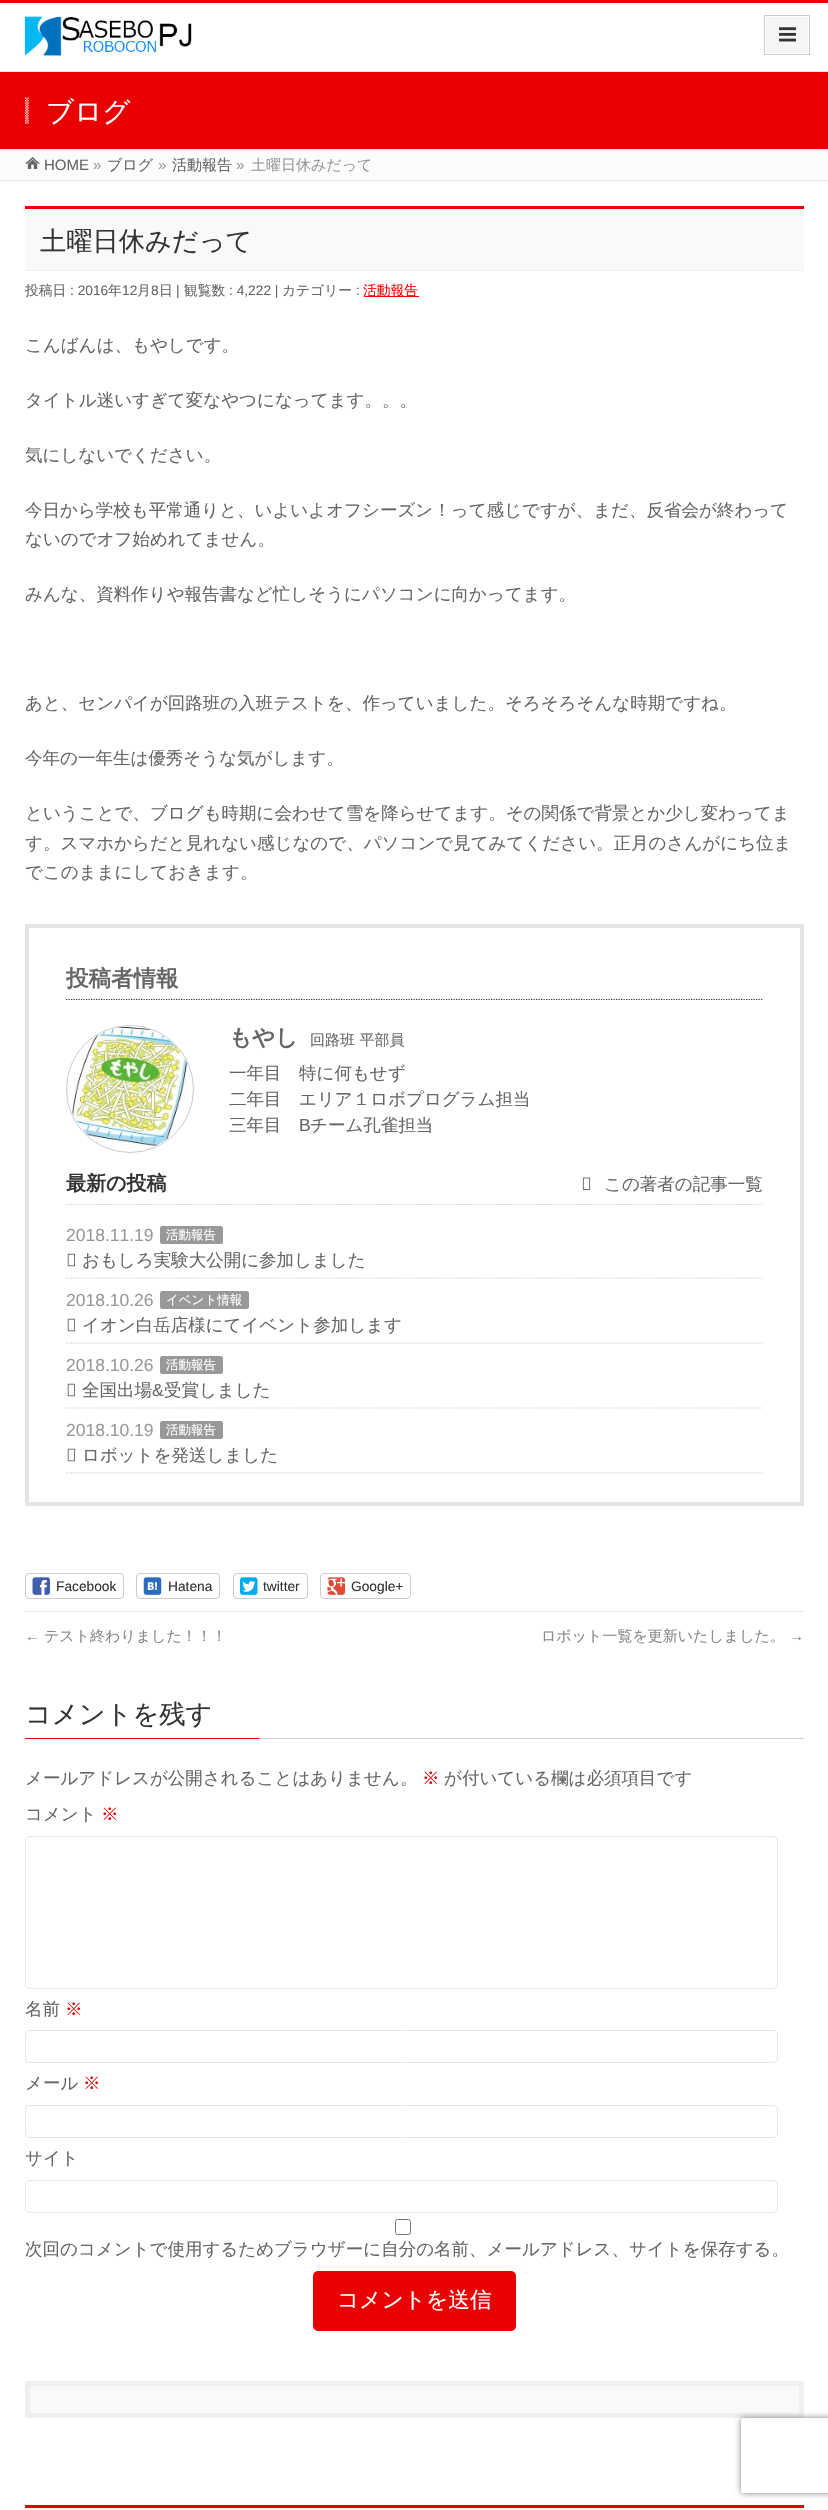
#include "include/core/SkBlurTypes.h"
#include "include/core/SkCanvas.h"
#include "include/core/SkData.h"
#include "include/core/SkFont.h"
#include "include/core/SkFontMgr.h"
#include "include/core/SkImage.h"
#include "include/core/SkMaskFilter.h"
#include "include/core/SkPaint.h"
#include "include/core/SkPathBuilder.h"
#include "include/core/SkTextBlob.h"
#include "include/effects/SkDashPathEffect.h"
#include "include/effects/SkGradientShader.h"
#include "include/utils/SkParsePath.h"

extern sk_sp<SkFontMgr> fontMgr;

void draw(SkCanvas* canvas) {
  SkPaint p;
  p.setAntiAlias(true);
  canvas->clear(SK_ColorWHITE);
  p.setColor(SkColorSetRGB(233, 0, 0));
  canvas->drawRect(SkRect::MakeLTRB(0, 0, 828, 3), p);
  canvas->drawImageRect(SkImages::DeferredFromEncodedData(SkData::MakeFromFileName("images/1.png")), SkRect::MakeLTRB(24, 16, 192, 56), SkSamplingOptions());
  p.setColor(SkColorSetRGB(245, 245, 245));
  canvas->drawRect(SkRect::MakeLTRB(766, 17, 808, 53), p);
  p.setStyle(SkPaint::kStroke_Style);
  p.setStrokeWidth(1);
  p.setColor(SkColorSetRGB(204, 204, 204));
  canvas->drawRect(SkRect::MakeLTRB(764.5f, 15.5f, 809.5f, 54.5f), p);
  canvas->drawImageRect(SkImages::DeferredFromEncodedData(SkData::MakeFromFileName("images/2.png")), SkRect::MakeLTRB(779, 27, 796, 42), SkSamplingOptions());
  p.setStyle(SkPaint::kFill_Style);
  p.setColor(SkColorSetRGB(233, 0, 0));
  canvas->drawRect(SkRect::MakeLTRB(0, 72, 828, 149), p);
  p.setColor(SkColorSetRGB(233, 233, 233));
  canvas->drawRect(SkRect::MakeLTRB(0, 71, 828, 72), p);
  canvas->drawRect(SkRect::MakeLTRB(0, 149, 828, 150), p);
  canvas->drawImageRect(SkImages::DeferredFromEncodedData(SkData::MakeFromFileName("images/3.png")), SkRect::MakeLTRB(25, 97, 29, 124), SkSamplingOptions());
  p.setColor(SkColorSetRGB(252, 252, 252));
  canvas->drawRect(SkRect::MakeLTRB(0, 150, 828, 180), p);
  canvas->drawImageRect(SkImages::DeferredFromEncodedData(SkData::MakeFromFileName("images/4.png")), SkRect::MakeLTRB(25, 157, 40, 169), SkSamplingOptions());
  p.setColor(SkColorSetRGB(233, 233, 233));
  canvas->drawRect(SkRect::MakeLTRB(0, 180, 828, 181), p);
  p.setColor(SkColorSetRGB(249, 249, 249));
  canvas->drawRect(SkRect::MakeLTRB(25, 209, 804, 270), p);
  p.setColor(SkColorSetRGB(233, 0, 0));
  canvas->drawRect(SkRect::MakeLTRB(25, 206, 804, 209), p);
  p.setColor(SkColorSetRGB(239, 239, 239));
  canvas->drawRect(SkRect::MakeLTRB(25, 270, 804, 271), p);
  p.setColor(SkColorSetRGB(255, 0, 0));
  canvas->drawRect(SkRect::MakeLTRB(364, 296, 419, 297), p);
  p.setStyle(SkPaint::kStroke_Style);
  p.setStrokeWidth(4);
  p.setColor(SkColorSetRGB(229, 229, 229));
  canvas->drawRect(SkRect::MakeLTRB(27, 926, 802, 1504), p);
  p.setStrokeWidth(1.2f);
  p.setColor(SkColorSetRGB(51, 51, 51));
  p.setPathEffect(SkDashPathEffect::Make({{1.25f, 1.25f}}, 0));
  canvas->drawPath(SkPathBuilder().moveTo(66, 999.5f).lineTo(762.5f, 999.5f).detach(), p);
  p.setPathEffect(nullptr);
  p.setStrokeWidth(1);
  p.setColor(SkColorSetRGB(204, 204, 204));
  canvas->drawCircle(130, 1089, 63.5f, p);
  canvas->drawImageRect(SkImages::DeferredFromEncodedData(SkData::MakeFromFileName("images/5.png")), SkRect::MakeLTRB(70, 1026, 188, 1147), SkSamplingOptions());
  p.setStrokeWidth(1.2f);
  p.setPathEffect(SkDashPathEffect::Make({{1.25f, 1.25f}}, 0));
  canvas->drawPath(SkPathBuilder().moveTo(66, 1204.5f).lineTo(762.5f, 1204.5f).detach(), p);
  p.setPathEffect(nullptr);
  canvas->drawImageRect(SkImages::DeferredFromEncodedData(SkData::MakeFromFileName("images/6.png")), SkRect::MakeLTRB(582, 1177, 591, 1190), SkSamplingOptions());
  p.setPathEffect(SkDashPathEffect::Make({{1.25f, 1.25f}}, 0));
  canvas->drawPath(SkPathBuilder().moveTo(66, 1278).lineTo(762.5f, 1278).detach(), p);
  p.setPathEffect(nullptr);
  p.setStyle(SkPaint::kFill_Style);
  p.setColor(SkColorSetRGB(153, 153, 153));
  canvas->drawRoundRect(SkRect::MakeLTRB(160, 1226, 223, 1244), 2.5f, 2.5f, p);
  canvas->drawImageRect(SkImages::DeferredFromEncodedData(SkData::MakeFromFileName("images/7.png")), SkRect::MakeLTRB(67, 1253, 75, 1267), SkSamplingOptions());
  p.setStyle(SkPaint::kStroke_Style);
  p.setColor(SkColorSetRGB(204, 204, 204));
  p.setPathEffect(SkDashPathEffect::Make({{1.25f, 1.25f}}, 0));
  canvas->drawPath(SkPathBuilder().moveTo(66, 1343).lineTo(762.5f, 1343).detach(), p);
  p.setPathEffect(nullptr);
  p.setStyle(SkPaint::kFill_Style);
  p.setColor(SkColorSetRGB(153, 153, 153));
  canvas->drawRoundRect(SkRect::MakeLTRB(160, 1291, 249, 1309), 2.5f, 2.5f, p);
  canvas->drawImageRect(SkImages::DeferredFromEncodedData(SkData::MakeFromFileName("images/7.png")), SkRect::MakeLTRB(67, 1318, 75, 1332), SkSamplingOptions());
  p.setStyle(SkPaint::kStroke_Style);
  p.setColor(SkColorSetRGB(204, 204, 204));
  p.setPathEffect(SkDashPathEffect::Make({{1.25f, 1.25f}}, 0));
  canvas->drawPath(SkPathBuilder().moveTo(66, 1408).lineTo(762.5f, 1408).detach(), p);
  p.setPathEffect(nullptr);
  p.setStyle(SkPaint::kFill_Style);
  p.setColor(SkColorSetRGB(153, 153, 153));
  canvas->drawRoundRect(SkRect::MakeLTRB(160, 1356, 223, 1374), 2.5f, 2.5f, p);
  canvas->drawImageRect(SkImages::DeferredFromEncodedData(SkData::MakeFromFileName("images/7.png")), SkRect::MakeLTRB(67, 1383, 75, 1397), SkSamplingOptions());
  p.setStyle(SkPaint::kStroke_Style);
  p.setColor(SkColorSetRGB(204, 204, 204));
  p.setPathEffect(SkDashPathEffect::Make({{1.25f, 1.25f}}, 0));
  canvas->drawPath(SkPathBuilder().moveTo(66, 1473).lineTo(762.5f, 1473).detach(), p);
  p.setPathEffect(nullptr);
  p.setStyle(SkPaint::kFill_Style);
  p.setColor(SkColorSetRGB(153, 153, 153));
  canvas->drawRoundRect(SkRect::MakeLTRB(160, 1421, 223, 1439), 2.5f, 2.5f, p);
  canvas->drawImageRect(SkImages::DeferredFromEncodedData(SkData::MakeFromFileName("images/7.png")), SkRect::MakeLTRB(67, 1448, 75, 1462), SkSamplingOptions());
  p.setStyle(SkPaint::kStroke_Style);
  p.setStrokeWidth(1);
  p.setColor(SkColorSetRGB(204, 204, 204));
  canvas->drawRoundRect(SkRect::MakeLTRB(25.5f, 1573.5f, 123.5f, 1598.5f), 3.5f, 3.5f, p);
  canvas->drawImageRect(SkImages::DeferredFromEncodedData(SkData::MakeFromFileName("images/8.png")), SkRect::MakeLTRB(32, 1577, 50, 1595), SkSamplingOptions());
  canvas->drawRoundRect(SkRect::MakeLTRB(136.5f, 1573.5f, 219.5f, 1598.5f), 3.5f, 3.5f, p);
  canvas->drawImageRect(SkImages::DeferredFromEncodedData(SkData::MakeFromFileName("images/9.png")), SkRect::MakeLTRB(143, 1577, 162, 1595), SkSamplingOptions());
  canvas->drawRoundRect(SkRect::MakeLTRB(233.5f, 1573.5f, 307.5f, 1598.5f), 3.5f, 3.5f, p);
  canvas->drawImageRect(SkImages::DeferredFromEncodedData(SkData::MakeFromFileName("images/10.png")), SkRect::MakeLTRB(240, 1577, 258, 1595), SkSamplingOptions());
  canvas->drawRoundRect(SkRect::MakeLTRB(320.5f, 1573.5f, 410.5f, 1598.5f), 3.5f, 3.5f, p);
  canvas->drawImageRect(SkImages::DeferredFromEncodedData(SkData::MakeFromFileName("images/11.png")), SkRect::MakeLTRB(327, 1577, 345, 1595), SkSamplingOptions());
  p.setStyle(SkPaint::kFill_Style);
  p.setColor(SkColorSetRGB(229, 229, 229));
  canvas->drawRect(SkRect::MakeLTRB(25, 1611, 804, 1612), p);
  p.setColor(SkColorSetRGB(204, 204, 204));
  canvas->drawRect(SkRect::MakeLTRB(259, 1738, 804, 1739), p);
  p.setColor(SkColorSetRGB(233, 0, 0));
  canvas->drawRect(SkRect::MakeLTRB(25, 1738, 259, 1739), p);
  p.setStyle(SkPaint::kStroke_Style);
  p.setColor(SkColorSetRGB(229, 229, 229));
  canvas->drawRoundRect(SkRect::MakeLTRB(25.5f, 1836.5f, 777.5f, 1988.5f), 4.5f, 4.5f, p);
  canvas->drawRoundRect(SkRect::MakeLTRB(25.5f, 2030.5f, 777.5f, 2062.5f), 4.5f, 4.5f, p);
  canvas->drawRoundRect(SkRect::MakeLTRB(25.5f, 2105.5f, 777.5f, 2137.5f), 4.5f, 4.5f, p);
  canvas->drawRoundRect(SkRect::MakeLTRB(25.5f, 2180.5f, 777.5f, 2212.5f), 4.5f, 4.5f, p);
  p.setColor(SkColorSetRGB(118, 118, 118));
  canvas->drawRoundRect(SkRect::MakeLTRB(395.5f, 2219.5f, 410.5f, 2234.5f), 2, 2, p);
  p.setStyle(SkPaint::kFill_Style);
  p.setColor(SkColorSetRGB(233, 0, 0));
  canvas->drawRoundRect(SkRect::MakeLTRB(313, 2271, 516, 2331), 5, 5, p);
  p.setColor(SkColorSetRGB(249, 249, 249));
  canvas->drawRect(SkRect::MakeLTRB(27.5f, 2383.5f, 801.5f, 2415.5f), p);
  p.setStyle(SkPaint::kStroke_Style);
  p.setStrokeWidth(5);
  p.setColor(SkColorSetRGB(239, 239, 239));
  canvas->drawRect(SkRect::MakeLTRB(27.5f, 2383.5f, 801.5f, 2415.5f), p);
  p.setStyle(SkPaint::kFill_Style);
  p.setColor(SkColorSetRGB(249, 249, 249));
  canvas->drawRect(SkRect::MakeLTRB(25, 2508, 804, 2510), p);
  p.setColor(SkColorSetRGB(233, 0, 0));
  canvas->drawRect(SkRect::MakeLTRB(25, 2505, 804, 2508), p);
  canvas->save();
  canvas->clipPath(SkPathBuilder(SkPathFillType::kEvenOdd).moveTo(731, 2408).lineTo(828, 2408).lineTo(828, 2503).lineTo(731, 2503).close().moveTo(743.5f, 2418).lineTo(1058.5f, 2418).cubicTo(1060, 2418, 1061, 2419, 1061, 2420.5f).lineTo(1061, 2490.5f).cubicTo(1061, 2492, 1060, 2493, 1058.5f, 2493).lineTo(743.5f, 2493).cubicTo(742, 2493, 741, 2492, 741, 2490.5f).lineTo(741, 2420.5f).cubicTo(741, 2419, 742, 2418, 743.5f, 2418).close().detach(), true);
  p.setColor(SkColorSetRGB(128, 128, 128));
  p.setMaskFilter(SkMaskFilter::MakeBlur(kNormal_SkBlurStyle, 3));
  canvas->drawRoundRect(SkRect::MakeLTRB(741, 2418, 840, 2493), 2.5f, 2.5f, p);
  p.setMaskFilter(nullptr);
  canvas->restore();
  SkFont font1(fontMgr->matchFamilyStyle("WenQuanYi Zen Hei", SkFontStyle(500, SkFontStyle::kNormal_Width, SkFontStyle::kUpright_Slant)), 27.5f);
  font1.setSubpixel(true);
  p.setColor(SK_ColorWHITE);
  canvas->drawString("ブログ", 46, 121, font1, p);
  SkFont font2(fontMgr->matchFamilyStyle("Liberation Sans", SkFontStyle::Normal()), 15);
  font2.setSubpixel(true);
  p.setColor(SkColorSetRGB(102, 102, 102));
  canvas->drawString("HOME", 44, 170, font2, p);
  p.setColor(SkColorSetRGB(153, 153, 153));
  canvas->drawString("»", 93, 170, font2, p);
  SkFont font3(fontMgr->matchFamilyStyle("WenQuanYi Zen Hei", SkFontStyle(500, SkFontStyle::kNormal_Width, SkFontStyle::kUpright_Slant)), 15);
  font3.setSubpixel(true);
  p.setColor(SkColorSetRGB(102, 102, 102));
  canvas->drawString("ブログ", 107, 170, font3, p);
  p.setColor(SkColorSetRGB(153, 153, 153));
  canvas->drawString("»", 158, 170, font2, p);
  p.setColor(SkColorSetRGB(102, 102, 102));
  canvas->drawString("活動報告", 172, 170, font3, p);
  p.setColor(SkColorSetRGB(153, 153, 153));
  canvas->drawString("»", 236, 170, font2, p);
  canvas->drawString("土曜日休みだって", 251, 170, font3, p);
  SkFont font4(fontMgr->matchFamilyStyle("WenQuanYi Zen Hei", SkFontStyle(500, SkFontStyle::kNormal_Width, SkFontStyle::kUpright_Slant)), 26.25f);
  font4.setSubpixel(true);
  p.setColor(SkColorSetRGB(51, 51, 51));
  canvas->drawString("土曜日休みだって", 40, 250, font4, p);
  SkFont font5(fontMgr->matchFamilyStyle("WenQuanYi Zen Hei", SkFontStyle(500, SkFontStyle::kNormal_Width, SkFontStyle::kUpright_Slant)), 13.75f);
  font5.setSubpixel(true);
  p.setColor(SkColorSetRGB(102, 102, 102));
  canvas->drawString("投稿日", 25, 295, font5, p);
  SkFont font6(fontMgr->matchFamilyStyle("Liberation Sans", SkFontStyle::Normal()), 13.75f);
  font6.setSubpixel(true);
  canvas->drawString(": 2016", 70, 295, font6, p);
  canvas->drawString("年", 108, 295, font5, p);
  canvas->drawString("12", 122, 295, font6, p);
  canvas->drawString("月", 137, 295, font5, p);
  canvas->drawString("8", 151, 295, font6, p);
  canvas->drawString("日", 159, 295, font5, p);
  canvas->drawString("|", 176, 295, font6, p);
  canvas->drawString("観覧数", 184, 295, font5, p);
  canvas->drawString(": 4,222 |", 229, 295, font6, p);
  canvas->drawString("カテゴリー", 282, 295, font5, p);
  canvas->drawString(":", 356, 295, font6, p);
  p.setColor(SkColorSetRGB(255, 0, 0));
  canvas->drawString("活動報告", 363, 295, font5, p);
  SkFont font7(fontMgr->matchFamilyStyle("WenQuanYi Zen Hei", SkFontStyle(500, SkFontStyle::kNormal_Width, SkFontStyle::kUpright_Slant)), 17.5f);
  font7.setSubpixel(true);
  p.setColor(SkColorSetRGB(102, 102, 102));
  canvas->drawString("こんばんは、もやしです。", 25, 351, font7, p);
  canvas->drawString("タイトル迷いすぎて変なやつになってます。。。", 25, 406, font7, p);
  canvas->drawString("気にしないでください。", 25, 461, font7, p);
  canvas->drawString("今日から学校も平常通りと、いよいよオフシーズン！って感じですが、まだ、反省会が終わって", 25, 516, font7, p);
  canvas->drawString("ないのでオフ始めれてません。", 25, 545, font7, p);
  canvas->drawString("みんな、資料作りや報告書など忙しそうにパソコンに向かってます。", 25, 600, font7, p);
  canvas->drawString("あと、センパイが回路班の入班テストを、作っていました。そろそろそんな時期ですね。", 25, 709, font7, p);
  canvas->drawString("今年の一年生は優秀そうな気がします。", 25, 764, font7, p);
  canvas->drawString("ということで、ブログも時期に会わせて雪を降らせてます。その関係で背景とか少し変わってま", 25, 819, font7, p);
  canvas->drawString("す。スマホからだと見れない感じなので、パソコンで見てみてください。正月のさんがにち位ま", 25, 849, font7, p);
  canvas->drawString("でこのままにしておきます。", 25, 878, font7, p);
  SkFont font8(fontMgr->matchFamilyStyle("WenQuanYi Zen Hei", SkFontStyle::Bold()), 22.5f);
  font8.setSubpixel(true);
  canvas->drawString("投稿者情報", 66, 986, font8, p);
  canvas->drawString("もやし", 229, 1045, font8, p);
  canvas->drawString("回路班 平部員", 310, 1045, font3, p);
  canvas->drawString("一年目　特に何もせず", 229, 1079, font7, p);
  canvas->drawString("二年目　エリア１ロボプログラム担当", 229, 1105, font7, p);
  canvas->drawString("三年目", 229, 1131, font7, p);
  SkFont font9(fontMgr->matchFamilyStyle("Liberation Sans", SkFontStyle::Normal()), 17.5f);
  font9.setSubpixel(true);
  canvas->drawString("B", 299, 1131, font9, p);
  canvas->drawString("チーム孔雀担当", 310, 1131, font7, p);
  SkFont font10(fontMgr->matchFamilyStyle("WenQuanYi Zen Hei", SkFontStyle::Bold()), 20);
  font10.setSubpixel(true);
  p.setColor(SkColorSetRGB(51, 51, 51));
  canvas->drawString("最新の投稿", 66, 1190, font10, p);
  p.setColor(SkColorSetRGB(102, 102, 102));
  canvas->drawString("この著者の記事一覧", 604, 1190, font7, p);
  p.setColor(SkColorSetRGB(153, 153, 153));
  canvas->drawString("2018.11.19", 66, 1241, font9, p);
  SkFont font11(fontMgr->matchFamilyStyle("WenQuanYi Zen Hei", SkFontStyle(500, SkFontStyle::kNormal_Width, SkFontStyle::kUpright_Slant)), 12.5f);
  font11.setSubpixel(true);
  p.setColor(SK_ColorWHITE);
  canvas->drawString("活動報告", 166, 1239, font11, p);
  p.setColor(SkColorSetRGB(102, 102, 102));
  canvas->drawString("おもしろ実験大公開に参加しました", 82, 1266, font7, p);
  p.setColor(SkColorSetRGB(153, 153, 153));
  canvas->drawString("2018.10.26", 66, 1306, font9, p);
  p.setColor(SK_ColorWHITE);
  canvas->drawString("イベント情報", 166, 1304, font11, p);
  p.setColor(SkColorSetRGB(102, 102, 102));
  canvas->drawString("イオン白岳店様にてイベント参加します", 82, 1331, font7, p);
  p.setColor(SkColorSetRGB(153, 153, 153));
  canvas->drawString("2018.10.26", 66, 1371, font9, p);
  p.setColor(SK_ColorWHITE);
  canvas->drawString("活動報告", 166, 1369, font11, p);
  p.setColor(SkColorSetRGB(102, 102, 102));
  canvas->drawString("全国出場", 82, 1396, font7, p);
  canvas->drawString("&", 152, 1396, font9, p);
  canvas->drawString("受賞しました", 164, 1396, font7, p);
  p.setColor(SkColorSetRGB(153, 153, 153));
  canvas->drawString("2018.10.19", 66, 1436, font9, p);
  p.setColor(SK_ColorWHITE);
  canvas->drawString("活動報告", 166, 1434, font11, p);
  p.setColor(SkColorSetRGB(102, 102, 102));
  canvas->drawString("ロボットを発送しました", 82, 1461, font7, p);
  p.setColor(SkColorSetRGB(51, 51, 51));
  canvas->drawString("Facebook", 56, 1591, font6, p);
  canvas->drawString("Hatena", 168, 1591, font6, p);
  canvas->drawString("twitter", 263, 1591, font6, p);
  canvas->drawString("Google+", 351, 1591, font6, p);
  p.setColor(SkColorSetRGB(136, 136, 136));
  canvas->drawString("←", 25, 1641, font2, p);
  canvas->drawString("テスト終わりました！！！", 44, 1641, font3, p);
  canvas->drawString("ロボット一覧を更新いたしました。", 541, 1641, font3, p);
  canvas->drawString("→", 789, 1641, font2, p);
  p.setColor(SkColorSetRGB(51, 51, 51));
  canvas->drawString("コメントを残す", 25, 1723, font4, p);
  p.setColor(SkColorSetRGB(102, 102, 102));
  canvas->drawString("メールアドレスが公開されることはありません。", 25, 1784, font7, p);
  p.setColor(SkColorSetRGB(229, 0, 0));
  canvas->drawString("※", 422, 1784, font7, p);
  p.setColor(SkColorSetRGB(102, 102, 102));
  canvas->drawString("が付いている欄は必須項目です", 444, 1784, font7, p);
  canvas->drawString("コメント", 25, 1820, font7, p);
  p.setColor(SkColorSetRGB(229, 0, 0));
  canvas->drawString("※", 101, 1820, font7, p);
  p.setColor(SkColorSetRGB(102, 102, 102));
  canvas->drawString("名前", 25, 2015, font7, p);
  p.setColor(SkColorSetRGB(229, 0, 0));
  canvas->drawString("※", 65, 2015, font7, p);
  p.setColor(SkColorSetRGB(102, 102, 102));
  canvas->drawString("メール", 25, 2089, font7, p);
  p.setColor(SkColorSetRGB(229, 0, 0));
  canvas->drawString("※", 83, 2089, font7, p);
  p.setColor(SkColorSetRGB(102, 102, 102));
  canvas->drawString("サイト", 25, 2164, font7, p);
  canvas->drawString("次回のコメントで使用するためブラウザーに自分の名前、メールアドレス、サイトを保存する。", 25, 2255, font7, p);
  SkFont font12(fontMgr->matchFamilyStyle("WenQuanYi Zen Hei", SkFontStyle(500, SkFontStyle::kNormal_Width, SkFontStyle::kUpright_Slant)), 21.75f);
  font12.setSubpixel(true);
  p.setColor(SK_ColorWHITE);
  canvas->drawString("コメントを送信", 337, 2307, font12, p);
}
